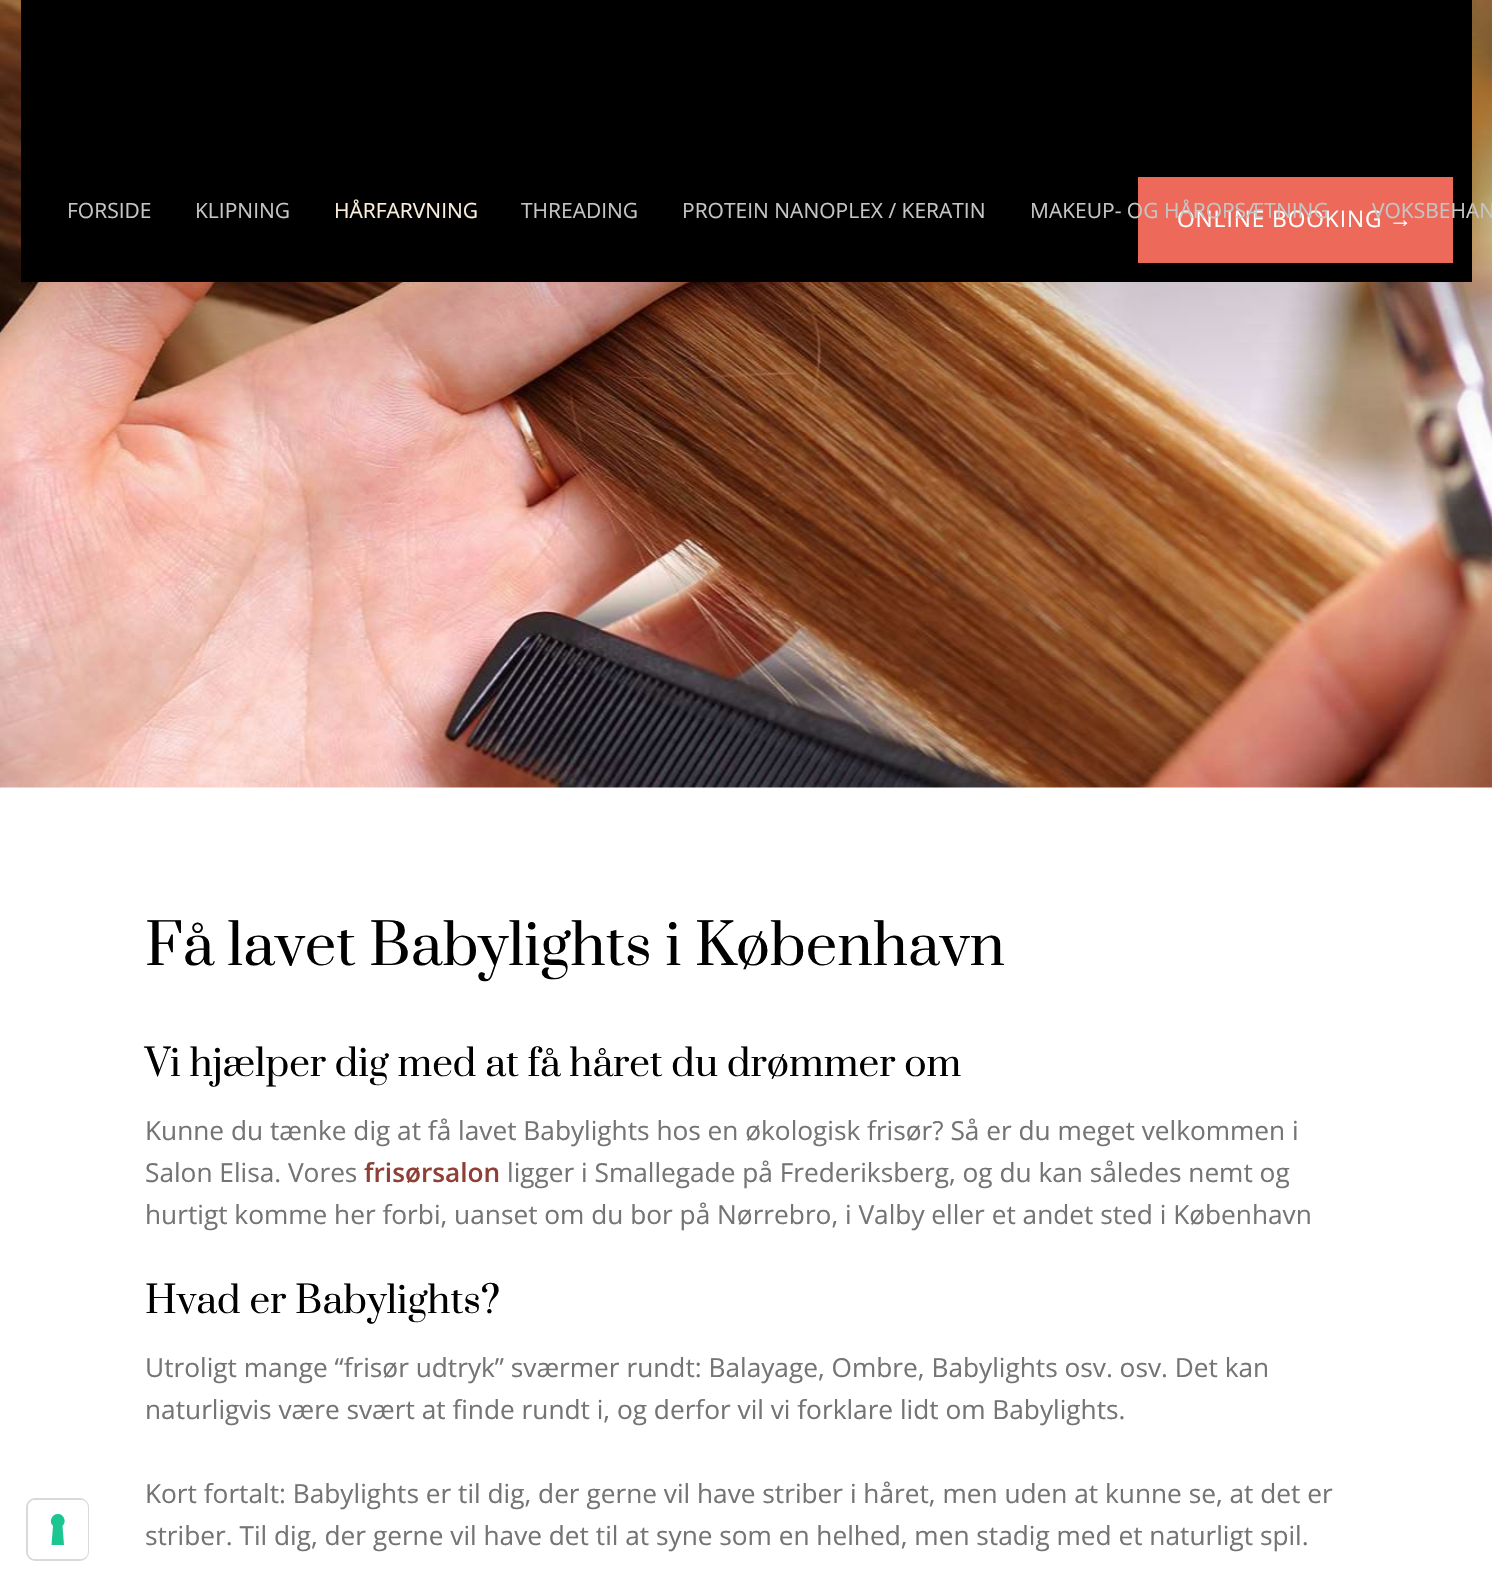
#include "include/core/SkBlurTypes.h"
#include "include/core/SkCanvas.h"
#include "include/core/SkData.h"
#include "include/core/SkFont.h"
#include "include/core/SkFontMgr.h"
#include "include/core/SkImage.h"
#include "include/core/SkMaskFilter.h"
#include "include/core/SkPaint.h"
#include "include/core/SkPathBuilder.h"
#include "include/core/SkTextBlob.h"
#include "include/effects/SkDashPathEffect.h"
#include "include/effects/SkGradientShader.h"
#include "include/utils/SkParsePath.h"

extern sk_sp<SkFontMgr> fontMgr;

void draw(SkCanvas* canvas) {
  SkPaint p;
  p.setAntiAlias(true);
  auto spacedText = [&](const char* s, float x, float y, const SkFont& font, const SkPaint& ink, float letter, float word) {
    std::vector<SkGlyphID> glyphs(font.countText(s, strlen(s), SkTextEncoding::kUTF8));
    std::vector<float> xs(glyphs.size());
    font.textToGlyphs(s, strlen(s), SkTextEncoding::kUTF8, glyphs);
    font.getXPos(glyphs, xs, x);
    float extra = 0;
    for (size_t i = 0; i < glyphs.size(); i++) {
      xs[i] += extra;
      extra += letter + word * (glyphs[i] == font.unicharToGlyph(' '));
    }
    canvas->drawTextBlob(SkTextBlob::MakeFromPosHGlyphs(glyphs, xs, y, font), 0, 0, ink);
  };
  canvas->clear(SK_ColorWHITE);
  p.setStyle(SkPaint::kStroke_Style);
  p.setStrokeWidth(2);
  p.setColor(SkColorSetRGB(217, 217, 217));
  canvas->drawRoundRect(SkRect::MakeLTRB(27, 1499, 88, 1560), 8, 8, p);
  p.setStyle(SkPaint::kFill_Style);
  p.setColor(SK_ColorWHITE);
  canvas->drawRoundRect(SkRect::MakeLTRB(28, 1500, 88, 1559), 7, 7, p);
  p.setColor(SkColorSetRGB(28, 198, 145));
  canvas->drawPath(SkPathBuilder(SkPathFillType::kEvenOdd).moveTo(58, 1514).cubicTo(64, 1514, 67, 1522, 62.5f, 1526).lineTo(64, 1545).lineTo(51.5f, 1545).lineTo(53, 1526).cubicTo(48.5f, 1522, 51.5f, 1514, 58, 1514).close().detach(), p);
  canvas->drawImageRect(SkImages::DeferredFromEncodedData(SkData::MakeFromFileName("images/1.png")), SkRect::MakeLTRB(0, 0, 1492, 788), SkSamplingOptions());
  p.setColor(SkColorSetARGB(51, 0, 0, 0));
  p.setMaskFilter(SkMaskFilter::MakeBlur(kNormal_SkBlurStyle, 87.5f));
  canvas->drawRect(SkRect::MakeLTRB(21, 12, 1472, 334), p);
  p.setMaskFilter(nullptr);
  p.setColor(SK_ColorBLACK);
  canvas->drawRect(SkRect::MakeLTRB(21, 0, 1472, 282), p);
  p.setColor(SkColorSetRGB(237, 106, 90));
  canvas->drawRect(SkRect::MakeLTRB(1138, 177, 1453, 263), p);
  SkFont font1(fontMgr->matchFamilyStyle("Open Sans", SkFontStyle::Normal()), 21);
  font1.setSubpixel(true);
  p.setColor(SkColorSetRGB(197, 197, 197));
  canvas->drawString("FORSIDE", 67, 218, font1, p);
  canvas->drawString("KLIPNING", 195, 218, font1, p);
  p.setColor(SkColorSetRGB(252, 239, 221));
  canvas->drawString("HÅRFARVNING", 334, 218, font1, p);
  p.setColor(SkColorSetRGB(197, 197, 197));
  canvas->drawString("THREADING", 521, 218, font1, p);
  canvas->drawString("PROTEIN NANOPLEX / KERATIN", 682, 218, font1, p);
  SkFont font2(fontMgr->matchFamilyStyle("Open Sans", SkFontStyle::Normal()), 22.75f);
  font2.setSubpixel(true);
  p.setColor(SK_ColorWHITE);
  spacedText("ONLINE BOOKING", 1177, 227, font2, p, 0.9f, 0);
  p.setColor(SkColorSetRGB(197, 197, 197));
  canvas->drawString("VOKSBEHAN", 1372, 218, font1, p);
  canvas->drawString("MAKEUP- OG HÅROPSÆTNING", 1030, 218, font1, p);
  SkFont font3(fontMgr->matchFamilyStyle("Liberation Sans", SkFontStyle::Normal()), 22.75f);
  font3.setSubpixel(true);
  p.setColor(SK_ColorWHITE);
  spacedText("→", 1389, 227, font3, p, 0.9f, 0);
  SkFont font4(fontMgr->matchFamilyStyle("Prata", SkFontStyle::Normal()), 56);
  font4.setSubpixel(true);
  p.setColor(SK_ColorBLACK);
  canvas->drawString("Få lavet Babylights i København", 145, 965, font4, p);
  SkFont font5(fontMgr->matchFamilyStyle("Prata", SkFontStyle::Normal()), 36.75f);
  font5.setSubpixel(true);
  canvas->drawString("Vi hjælper dig med at få håret du drømmer om", 145, 1076, font5, p);
  SkFont font6(fontMgr->matchFamilyStyle("Open Sans", SkFontStyle::Normal()), 26.25f);
  font6.setSubpixel(true);
  p.setColor(SkColorSetRGB(116, 116, 116));
  canvas->drawString("Kunne du tænke dig at få lavet Babylights hos en økologisk frisør? Så er du meget velkommen i", 145, 1140, font6, p);
  canvas->drawString("Salon Elisa. Vores", 145, 1182, font6, p);
  SkFont font7(fontMgr->matchFamilyStyle("Open Sans", SkFontStyle(600, SkFontStyle::kNormal_Width, SkFontStyle::kUpright_Slant)), 26.25f);
  font7.setSubpixel(true);
  p.setColor(SkColorSetRGB(142, 64, 54));
  canvas->drawString("frisørsalon", 364, 1182, font7, p);
  p.setColor(SkColorSetRGB(116, 116, 116));
  canvas->drawString("ligger i Smallegade på Frederiksberg, og du kan således nemt og", 507, 1182, font6, p);
  canvas->drawString("hurtigt komme her forbi, uanset om du bor på Nørrebro, i Valby eller et andet sted i København", 145, 1224, font6, p);
  p.setColor(SK_ColorBLACK);
  canvas->drawString("Hvad er Babylights?", 145, 1313, font5, p);
  p.setColor(SkColorSetRGB(116, 116, 116));
  canvas->drawString("Utroligt mange “frisør udtryk” sværmer rundt: Balayage, Ombre, Babylights osv. osv. Det kan", 145, 1377, font6, p);
  canvas->drawString("naturligvis være svært at finde rundt i, og derfor vil vi forklare lidt om Babylights.", 145, 1419, font6, p);
  canvas->drawString("Kort fortalt: Babylights er til dig, der gerne vil have striber i håret, men uden at kunne se, at det er", 145, 1503, font6, p);
  canvas->drawString("striber. Til dig, der gerne vil have det til at syne som en helhed, men stadig med et naturligt spil.", 145, 1545, font6, p);
}
